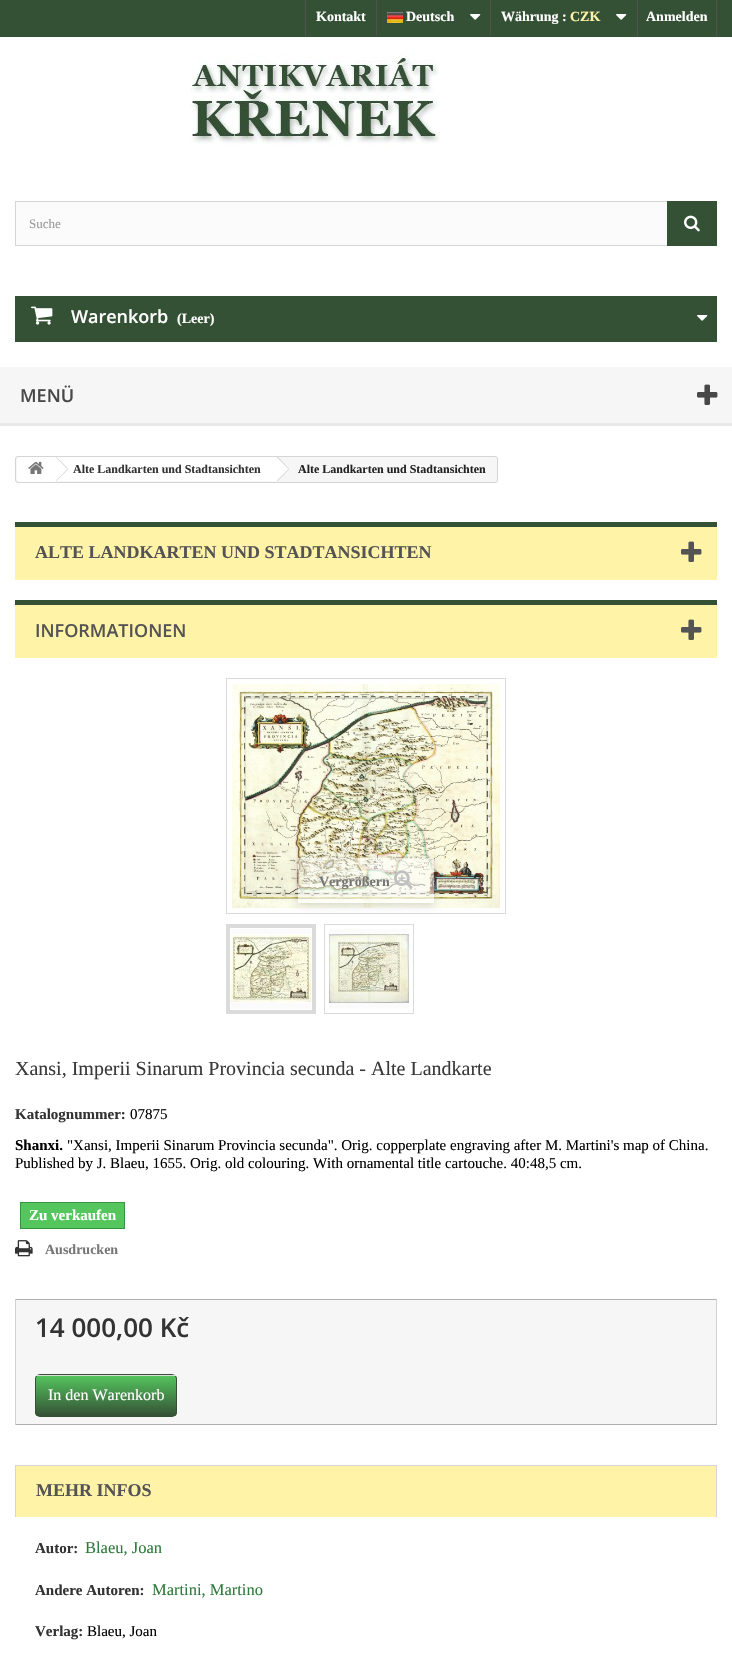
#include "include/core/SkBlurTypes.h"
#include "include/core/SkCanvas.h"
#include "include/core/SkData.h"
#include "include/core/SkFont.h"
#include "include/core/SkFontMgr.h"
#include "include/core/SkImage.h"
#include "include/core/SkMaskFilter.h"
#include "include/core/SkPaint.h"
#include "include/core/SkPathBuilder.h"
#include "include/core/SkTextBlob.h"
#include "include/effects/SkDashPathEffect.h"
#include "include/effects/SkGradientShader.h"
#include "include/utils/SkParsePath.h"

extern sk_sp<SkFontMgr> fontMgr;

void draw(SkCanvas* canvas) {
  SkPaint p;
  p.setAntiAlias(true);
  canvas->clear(SK_ColorWHITE);
  p.setColor(SkColorSetRGB(53, 81, 53));
  canvas->drawRect(SkRect::MakeLTRB(0, 0, 732, 37), p);
  p.setColor(SkColorSetRGB(81, 81, 81));
  canvas->drawRect(SkRect::MakeLTRB(305, 0, 306, 37), p);
  canvas->drawRect(SkRect::MakeLTRB(376, 0, 377, 36), p);
  canvas->drawImageRect(SkImages::DeferredFromEncodedData(SkData::MakeFromFileName("images/1.png")), SkRect::MakeLTRB(387, 12, 403, 23), SkSamplingOptions());
  canvas->drawImageRect(SkImages::DeferredFromEncodedData(SkData::MakeFromFileName("images/2.png")), SkRect::MakeLTRB(470, 14, 481, 20), SkSamplingOptions());
  canvas->drawRect(SkRect::MakeLTRB(490, 0, 491, 36), p);
  canvas->drawImageRect(SkImages::DeferredFromEncodedData(SkData::MakeFromFileName("images/2.png")), SkRect::MakeLTRB(616, 14, 627, 20), SkSamplingOptions());
  canvas->drawRect(SkRect::MakeLTRB(716, 0, 717, 37), p);
  canvas->drawRect(SkRect::MakeLTRB(637, 0, 638, 37), p);
  canvas->drawImageRect(SkImages::DeferredFromEncodedData(SkData::MakeFromFileName("images/3.png")), SkRect::MakeLTRB(191, 52, 440, 148), SkSamplingOptions());
  p.setColor(SkColorSetRGB(251, 251, 251));
  canvas->drawRect(SkRect::MakeLTRB(16, 202, 667, 245), p);
  p.setStyle(SkPaint::kStroke_Style);
  p.setStrokeWidth(1);
  p.setColor(SkColorSetRGB(214, 212, 212));
  canvas->drawRect(SkRect::MakeLTRB(15.5f, 201.5f, 716.5f, 245.5f), p);
  p.setStyle(SkPaint::kFill_Style);
  p.setColor(SkColorSetRGB(53, 81, 53));
  canvas->drawRect(SkRect::MakeLTRB(667, 201, 717, 246), p);
  canvas->drawImageRect(SkImages::DeferredFromEncodedData(SkData::MakeFromFileName("images/4.png")), SkRect::MakeLTRB(684, 215, 700, 232), SkSamplingOptions());
  canvas->drawRect(SkRect::MakeLTRB(15, 296, 717, 342), p);
  canvas->drawImageRect(SkImages::DeferredFromEncodedData(SkData::MakeFromFileName("images/5.png")), SkRect::MakeLTRB(31, 306, 53, 325), SkSamplingOptions());
  canvas->drawImageRect(SkImages::DeferredFromEncodedData(SkData::MakeFromFileName("images/2.png")), SkRect::MakeLTRB(697, 315, 708, 321), SkSamplingOptions());
  p.setColor(SkColorSetRGB(246, 246, 246));
  canvas->drawRect(SkRect::MakeLTRB(0, 367, 732, 423), p);
  p.setColor(SkColorSetRGB(233, 233, 233));
  canvas->drawRect(SkRect::MakeLTRB(0, 423, 732, 426), p);
  canvas->drawImageRect(SkImages::DeferredFromEncodedData(SkData::MakeFromFileName("images/6.png")), SkRect::MakeLTRB(697, 384, 718, 405), SkSamplingOptions());
  p.setColor(SkColorSetRGB(246, 246, 246));
  canvas->drawRoundRect(SkRect::MakeLTRB(15.5f, 456.5f, 497.5f, 482.5f), 2.5f, 2.5f, p);
  p.setStyle(SkPaint::kStroke_Style);
  p.setColor(SkColorSetRGB(214, 212, 212));
  canvas->drawRoundRect(SkRect::MakeLTRB(15.5f, 456.5f, 497.5f, 482.5f), 2.5f, 2.5f, p);
  p.setStyle(SkPaint::kFill_Style);
  p.setColor(SK_ColorWHITE);
  canvas->drawPath(SkPathBuilder().moveTo(20, 457).lineTo(55, 457).lineTo(55, 482).lineTo(20, 482).cubicTo(18.5f, 482, 17, 480.5f, 17, 479).lineTo(17, 460).cubicTo(17, 458.5f, 18.5f, 457, 20, 457).close().detach(), p);
  canvas->drawImageRect(SkImages::DeferredFromEncodedData(SkData::MakeFromFileName("images/7.png")), SkRect::MakeLTRB(28, 461, 44, 474), SkSamplingOptions());
  canvas->drawRect(SkRect::MakeLTRB(55, 457, 276, 481), p);
  p.setColor(SkColorSetRGB(214, 212, 212));
  canvas->drawPath(SkPathBuilder().moveTo(56.5f, 457).lineTo(68, 468.5f).lineTo(67.5f, 469).lineTo(56, 457.5f).close().moveTo(67.5f, 469).lineTo(68, 469.5f).lineTo(56.5f, 481).lineTo(56, 480.5f).close().detach(), p);
  p.setColor(SK_ColorWHITE);
  canvas->drawPath(SkPathBuilder().moveTo(278.5f, 457.5f).lineTo(288.5f, 467.5f).cubicTo(289, 468.5f, 289, 469.5f, 288.5f, 470.5f).lineTo(278.5f, 480.5f).cubicTo(277.5f, 481, 276.5f, 481, 275.5f, 480.5f).lineTo(265.5f, 470.5f).cubicTo(265, 469.5f, 265, 468.5f, 265.5f, 467.5f).lineTo(275.5f, 457.5f).cubicTo(276.5f, 457, 277.5f, 457, 278.5f, 457.5f).close().detach(), p);
  p.setColor(SkColorSetRGB(214, 212, 212));
  canvas->drawPath(SkPathBuilder().moveTo(278, 457).lineTo(289, 468.5f).lineTo(288.5f, 469).lineTo(277, 457.5f).close().moveTo(288.5f, 469).lineTo(289, 469.5f).lineTo(278, 481).lineTo(277, 480.5f).close().detach(), p);
  p.setColor(SkColorSetRGB(255, 243, 167));
  canvas->drawRect(SkRect::MakeLTRB(15, 527, 717, 580), p);
  p.setColor(SkColorSetRGB(53, 81, 53));
  canvas->drawRect(SkRect::MakeLTRB(15, 522, 717, 527), p);
  canvas->drawImageRect(SkImages::DeferredFromEncodedData(SkData::MakeFromFileName("images/8.png")), SkRect::MakeLTRB(681, 541, 702, 562), SkSamplingOptions());
  p.setColor(SkColorSetRGB(255, 243, 167));
  canvas->drawRect(SkRect::MakeLTRB(15, 605, 717, 658), p);
  p.setColor(SkColorSetRGB(53, 81, 53));
  canvas->drawRect(SkRect::MakeLTRB(15, 600, 717, 605), p);
  canvas->drawImageRect(SkImages::DeferredFromEncodedData(SkData::MakeFromFileName("images/8.png")), SkRect::MakeLTRB(681, 619, 702, 640), SkSamplingOptions());
  p.setStyle(SkPaint::kStroke_Style);
  p.setColor(SkColorSetRGB(219, 219, 219));
  canvas->drawRect(SkRect::MakeLTRB(226.5f, 678.5f, 505.5f, 913.5f), p);
  canvas->drawImageRect(SkImages::DeferredFromEncodedData(SkData::MakeFromFileName("images/9.png")), SkRect::MakeLTRB(232, 684, 500, 908), SkSamplingOptions());
  canvas->save();
  canvas->clipPath(SkPathBuilder(SkPathFillType::kEvenOdd).moveTo(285, 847).lineTo(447, 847).lineTo(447, 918).lineTo(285, 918).close().moveTo(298, 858).lineTo(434, 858).lineTo(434, 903).lineTo(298, 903).close().detach(), true);
  p.setStyle(SkPaint::kFill_Style);
  p.setColor(SkColorSetARGB(41, 0, 0, 0));
  p.setMaskFilter(SkMaskFilter::MakeBlur(kNormal_SkBlurStyle, 4));
  canvas->drawRect(SkRect::MakeLTRB(298, 860, 434, 905), p);
  p.setMaskFilter(nullptr);
  canvas->restore();
  p.setColor(SkColorSetARGB(128, 255, 255, 255));
  canvas->drawRect(SkRect::MakeLTRB(298, 858, 434, 903), p);
  canvas->drawImageRect(SkImages::DeferredFromEncodedData(SkData::MakeFromFileName("images/10.png")), SkRect::MakeLTRB(394, 870, 413, 889), SkSamplingOptions());
  p.setStyle(SkPaint::kStroke_Style);
  p.setColor(SkColorSetRGB(219, 219, 219));
  canvas->drawRect(SkRect::MakeLTRB(226.5f, 924.5f, 315.5f, 1013.5f), p);
  p.setStyle(SkPaint::kFill_Style);
  p.setColor(SkColorSetRGB(251, 251, 251));
  canvas->drawRect(SkRect::MakeLTRB(231, 929, 311, 1009), p);
  p.setStyle(SkPaint::kStroke_Style);
  p.setStrokeWidth(3);
  p.setColor(SkColorSetRGB(219, 219, 219));
  canvas->drawRect(SkRect::MakeLTRB(228.5f, 926.5f, 313.5f, 1011.5f), p);
  canvas->drawImageRect(SkImages::DeferredFromEncodedData(SkData::MakeFromFileName("images/11.png")), SkRect::MakeLTRB(231, 934, 311, 1003), SkSamplingOptions());
  p.setStrokeWidth(1);
  canvas->drawRect(SkRect::MakeLTRB(324.5f, 924.5f, 413.5f, 1013.5f), p);
  p.setStyle(SkPaint::kFill_Style);
  p.setColor(SkColorSetRGB(251, 251, 251));
  canvas->drawRect(SkRect::MakeLTRB(329, 929, 409, 1009), p);
  canvas->drawImageRect(SkImages::DeferredFromEncodedData(SkData::MakeFromFileName("images/12.png")), SkRect::MakeLTRB(329, 933, 409, 1003), SkSamplingOptions());
  p.setColor(SkColorSetRGB(85, 198, 94));
  canvas->drawRect(SkRect::MakeLTRB(20.5f, 1202.5f, 124.5f, 1228.5f), p);
  p.setStyle(SkPaint::kStroke_Style);
  p.setColor(SkColorSetRGB(54, 148, 62));
  canvas->drawRect(SkRect::MakeLTRB(20.5f, 1202.5f, 124.5f, 1228.5f), p);
  canvas->drawImageRect(SkImages::DeferredFromEncodedData(SkData::MakeFromFileName("images/13.png")), SkRect::MakeLTRB(15, 1240, 33, 1257), SkSamplingOptions());
  p.setStyle(SkPaint::kFill_Style);
  p.setColor(SkColorSetRGB(246, 246, 246));
  canvas->drawRect(SkRect::MakeLTRB(16, 1300, 716, 1424), p);
  p.setColor(SkColorSetRGB(176, 175, 175));
  canvas->drawRect(SkRect::MakeLTRB(15, 1299, 717, 1300), p);
  p.setColor(SkColorSetRGB(210, 208, 208));
  canvas->drawRect(SkRect::MakeLTRB(716, 1299, 717, 1425), p);
  p.setColor(SkColorSetRGB(176, 175, 175));
  canvas->drawRect(SkRect::MakeLTRB(15, 1424, 717, 1425), p);
  p.setColor(SkColorSetRGB(210, 208, 208));
  canvas->drawRect(SkRect::MakeLTRB(15, 1299, 16, 1425), p);
  canvas->save();
  canvas->clipPath(SkPathBuilder().moveTo(40, 1374).lineTo(172, 1374).cubicTo(175, 1374, 177, 1376, 177, 1379).lineTo(177, 1412).cubicTo(177, 1415, 175, 1417, 172, 1417).lineTo(40, 1417).cubicTo(37, 1417, 35, 1415, 35, 1412).lineTo(35, 1379).cubicTo(35, 1376, 37, 1374, 40, 1374).close().detach(), true);
  {
    const SkColor colors[] = {SkColorSetRGB(85, 198, 94), SkColorSetRGB(53, 81, 53)};
    const float stops[] = {0, 1};
    const SkPoint ends[] = {{106, 1375}, {106, 1416}};
    p.setShader(SkGradientShader::MakeLinear(ends, colors, stops, 2, SkTileMode::kClamp));
    p.setAlpha(255);
  }
  canvas->drawRect(SkRect::MakeLTRB(35, 1376, 177, 1416), p);
  canvas->restore();
  p.setStyle(SkPaint::kStroke_Style);
  p.setShader(nullptr);
  p.setColor(SkColorSetRGB(53, 81, 53));
  canvas->drawRoundRect(SkRect::MakeLTRB(35.5f, 1374.5f, 176.5f, 1416.5f), 4.5f, 4.5f, p);
  p.setStyle(SkPaint::kFill_Style);
  p.setColor(SkColorSetRGB(221, 221, 221));
  canvas->drawRect(SkRect::MakeLTRB(36, 1375, 176, 1376), p);
  p.setColor(SkColorSetRGB(255, 243, 167));
  canvas->drawRect(SkRect::MakeLTRB(16, 1466, 716, 1517), p);
  p.setColor(SkColorSetRGB(214, 212, 212));
  canvas->drawRect(SkRect::MakeLTRB(15, 1465, 717, 1466), p);
  canvas->drawRect(SkRect::MakeLTRB(716, 1465, 717, 1517), p);
  canvas->drawRect(SkRect::MakeLTRB(15, 1465, 16, 1517), p);
  SkFont font1(fontMgr->matchFamilyStyle("Liberation Serif", SkFontStyle::Bold()), 14);
  font1.setSubpixel(true);
  p.setColor(SK_ColorWHITE);
  canvas->drawString("Kontakt", 316, 21, font1, p);
  canvas->drawString("Deutsch", 406, 21, font1, p);
  canvas->drawString("Währung :", 501, 21, font1, p);
  p.setColor(SkColorSetRGB(255, 243, 167));
  canvas->drawString("CZK", 570, 21, font1, p);
  p.setColor(SK_ColorWHITE);
  canvas->drawString("Anmelden", 646, 21, font1, p);
  SkFont font2(fontMgr->matchFamilyStyle("Liberation Serif", SkFontStyle::Normal()), 13);
  font2.setSubpixel(true);
  p.setColor(SkColorSetRGB(153, 153, 153));
  canvas->drawString("Suche", 29, 228, font2, p);
  SkFont font3(fontMgr->matchFamilyStyle("Open Sans", SkFontStyle(600, SkFontStyle::kNormal_Width, SkFontStyle::kUpright_Slant)), 18);
  font3.setSubpixel(true);
  p.setColor(SK_ColorWHITE);
  canvas->drawString("Warenkorb", 71, 323, font3, p);
  canvas->drawString("(Leer)", 177, 323, font1, p);
  p.setColor(SkColorSetRGB(72, 72, 72));
  canvas->drawString("MENÜ", 20, 402, font3, p);
  SkFont font4(fontMgr->matchFamilyStyle("Liberation Serif", SkFontStyle::Bold()), 12);
  font4.setSubpixel(true);
  p.setColor(SkColorSetRGB(51, 51, 51));
  canvas->drawString("Alte Landkarten und Stadtansichten", 73, 473, font4, p);
  p.setColor(SkColorSetRGB(34, 34, 34));
  canvas->drawString("Alte Landkarten und Stadtansichten", 298, 473, font4, p);
  SkFont font5(fontMgr->matchFamilyStyle("Liberation Serif", SkFontStyle::Bold()), 18);
  font5.setSubpixel(true);
  p.setColor(SkColorSetRGB(85, 84, 84));
  canvas->drawString("ALTE LANDKARTEN UND STADTANSICHTEN", 35, 558, font5, p);
  canvas->drawString("INFORMATIONEN", 35, 637, font3, p);
  p.setColor(SkColorSetRGB(119, 118, 118));
  canvas->drawString("Vergrößern", 319, 886, font1, p);
  SkFont font6(fontMgr->matchFamilyStyle("Liberation Serif", SkFontStyle::Normal()), 20);
  font6.setSubpixel(true);
  p.setColor(SkColorSetRGB(58, 57, 57));
  canvas->drawString("Xansi, Imperii Sinarum Provincia secunda - Alte Landkarte", 15, 1075, font6, p);
  SkFont font7(fontMgr->matchFamilyStyle("Liberation Serif", SkFontStyle::Bold()), 15);
  font7.setSubpixel(true);
  p.setColor(SkColorSetRGB(51, 51, 51));
  canvas->drawString("Katalognummer:", 15, 1119, font7, p);
  SkFont font8(fontMgr->matchFamilyStyle("Liberation Serif", SkFontStyle::Normal()), 15);
  font8.setSubpixel(true);
  p.setColor(SK_ColorBLACK);
  canvas->drawString("07875", 130, 1119, font8, p);
  canvas->drawString("Shanxi.", 15, 1150, font7, p);
  canvas->drawString("\"Xansi, Imperii Sinarum Provincia secunda\". Orig. copperplate engraving after M. Martini's map of China.", 67, 1150, font8, p);
  canvas->drawString("Published by J. Blaeu, 1655. Orig. old colouring. With ornamental title cartouche. 40:48,5 cm.", 15, 1168, font8, p);
  p.setColor(SK_ColorWHITE);
  canvas->drawString("Zu verkaufen", 29, 1220, font7, p);
  p.setColor(SkColorSetRGB(119, 118, 118));
  canvas->drawString("Ausdrucken", 45, 1254, font1, p);
  SkFont font9(fontMgr->matchFamilyStyle("Open Sans", SkFontStyle(600, SkFontStyle::kNormal_Width, SkFontStyle::kUpright_Slant)), 26);
  font9.setSubpixel(true);
  p.setColor(SkColorSetRGB(51, 51, 51));
  canvas->drawString("14 000,00 Kč", 35, 1337, font9, p);
  SkFont font10(fontMgr->matchFamilyStyle("Liberation Serif", SkFontStyle::Normal()), 16);
  font10.setSubpixel(true);
  p.setColor(SK_ColorWHITE);
  canvas->drawString("In den Warenkorb", 48, 1400, font10, p);
  p.setColor(SkColorSetRGB(85, 84, 84));
  canvas->drawString("MEHR INFOS", 36, 1496, font5, p);
  p.setColor(SkColorSetRGB(51, 51, 51));
  canvas->drawString("Autor:", 35, 1553, font7, p);
  SkFont font11(fontMgr->matchFamilyStyle("Liberation Serif", SkFontStyle::Normal()), 16.5f);
  font11.setSubpixel(true);
  p.setColor(SkColorSetRGB(46, 122, 58));
  canvas->drawString("Blaeu, Joan", 85, 1553, font11, p);
  p.setColor(SkColorSetRGB(51, 51, 51));
  canvas->drawString("Andere Autoren:", 35, 1595, font7, p);
  p.setColor(SkColorSetRGB(46, 122, 58));
  canvas->drawString("Martini, Martino", 152, 1595, font11, p);
  p.setColor(SkColorSetRGB(51, 51, 51));
  canvas->drawString("Verlag:", 35, 1636, font7, p);
  p.setColor(SK_ColorBLACK);
  canvas->drawString("Blaeu, Joan", 87, 1636, font8, p);
}
